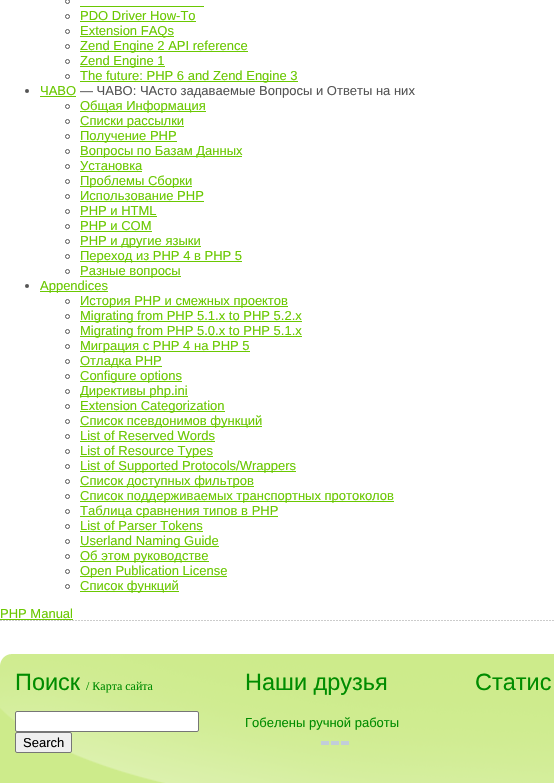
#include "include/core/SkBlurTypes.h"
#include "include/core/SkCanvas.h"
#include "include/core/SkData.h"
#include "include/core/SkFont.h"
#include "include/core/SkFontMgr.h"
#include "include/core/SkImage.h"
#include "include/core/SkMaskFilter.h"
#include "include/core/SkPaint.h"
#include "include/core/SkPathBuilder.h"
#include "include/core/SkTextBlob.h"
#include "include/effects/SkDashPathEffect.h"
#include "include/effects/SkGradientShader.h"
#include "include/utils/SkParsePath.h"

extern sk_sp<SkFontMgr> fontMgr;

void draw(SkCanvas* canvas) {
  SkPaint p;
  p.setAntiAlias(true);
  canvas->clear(SK_ColorWHITE);
  canvas->drawImageRect(SkImages::DeferredFromEncodedData(SkData::MakeFromFileName("images/1.png")), SkRect::MakeLTRB(0, 620, 554, 621), SkSamplingOptions());
  p.setStyle(SkPaint::kStroke_Style);
  p.setStrokeWidth(1);
  p.setColor(SkColorSetRGB(85, 85, 85));
  canvas->drawCircle(67.5f, 1.5f, 2, p);
  p.setStyle(SkPaint::kFill_Style);
  p.setColor(SkColorSetRGB(106, 200, 1));
  canvas->drawRect(SkRect::MakeLTRB(80, 6, 204, 7), p);
  p.setStyle(SkPaint::kStroke_Style);
  p.setColor(SkColorSetRGB(85, 85, 85));
  canvas->drawCircle(67.5f, 16.5f, 2, p);
  p.setStyle(SkPaint::kFill_Style);
  p.setColor(SkColorSetRGB(106, 200, 1));
  canvas->drawRect(SkRect::MakeLTRB(80, 21, 196, 22), p);
  p.setStyle(SkPaint::kStroke_Style);
  p.setColor(SkColorSetRGB(85, 85, 85));
  canvas->drawCircle(67.5f, 31.5f, 2, p);
  p.setStyle(SkPaint::kFill_Style);
  p.setColor(SkColorSetRGB(106, 200, 1));
  canvas->drawRect(SkRect::MakeLTRB(80, 36, 174, 37), p);
  p.setStyle(SkPaint::kStroke_Style);
  p.setColor(SkColorSetRGB(85, 85, 85));
  canvas->drawCircle(67.5f, 46.5f, 2, p);
  p.setStyle(SkPaint::kFill_Style);
  p.setColor(SkColorSetRGB(106, 200, 1));
  canvas->drawRect(SkRect::MakeLTRB(80, 51, 248, 52), p);
  p.setStyle(SkPaint::kStroke_Style);
  p.setColor(SkColorSetRGB(85, 85, 85));
  canvas->drawCircle(67.5f, 61.5f, 2, p);
  p.setStyle(SkPaint::kFill_Style);
  p.setColor(SkColorSetRGB(106, 200, 1));
  canvas->drawRect(SkRect::MakeLTRB(80, 66, 165, 67), p);
  p.setStyle(SkPaint::kStroke_Style);
  p.setColor(SkColorSetRGB(85, 85, 85));
  canvas->drawCircle(67.5f, 76.5f, 2, p);
  p.setStyle(SkPaint::kFill_Style);
  p.setColor(SkColorSetRGB(106, 200, 1));
  canvas->drawRect(SkRect::MakeLTRB(80, 81, 298, 82), p);
  p.setColor(SkColorSetRGB(85, 85, 85));
  canvas->drawCircle(27, 91, 2, p);
  p.setColor(SkColorSetRGB(106, 200, 1));
  canvas->drawRect(SkRect::MakeLTRB(40, 96, 76, 97), p);
  p.setStyle(SkPaint::kStroke_Style);
  p.setColor(SkColorSetRGB(85, 85, 85));
  canvas->drawCircle(67.5f, 106.5f, 2, p);
  p.setStyle(SkPaint::kFill_Style);
  p.setColor(SkColorSetRGB(106, 200, 1));
  canvas->drawRect(SkRect::MakeLTRB(80, 111, 206, 112), p);
  p.setStyle(SkPaint::kStroke_Style);
  p.setColor(SkColorSetRGB(85, 85, 85));
  canvas->drawCircle(67.5f, 121.5f, 2, p);
  p.setStyle(SkPaint::kFill_Style);
  p.setColor(SkColorSetRGB(106, 200, 1));
  canvas->drawRect(SkRect::MakeLTRB(80, 126, 184, 127), p);
  p.setStyle(SkPaint::kStroke_Style);
  p.setColor(SkColorSetRGB(85, 85, 85));
  canvas->drawCircle(67.5f, 136.5f, 2, p);
  p.setStyle(SkPaint::kFill_Style);
  p.setColor(SkColorSetRGB(106, 200, 1));
  canvas->drawRect(SkRect::MakeLTRB(80, 141, 177, 142), p);
  p.setStyle(SkPaint::kStroke_Style);
  p.setColor(SkColorSetRGB(85, 85, 85));
  canvas->drawCircle(67.5f, 151.5f, 2, p);
  p.setStyle(SkPaint::kFill_Style);
  p.setColor(SkColorSetRGB(106, 200, 1));
  canvas->drawRect(SkRect::MakeLTRB(80, 156, 242, 157), p);
  p.setStyle(SkPaint::kStroke_Style);
  p.setColor(SkColorSetRGB(85, 85, 85));
  canvas->drawCircle(67.5f, 166.5f, 2, p);
  p.setStyle(SkPaint::kFill_Style);
  p.setColor(SkColorSetRGB(106, 200, 1));
  canvas->drawRect(SkRect::MakeLTRB(80, 171, 142, 172), p);
  p.setStyle(SkPaint::kStroke_Style);
  p.setColor(SkColorSetRGB(85, 85, 85));
  canvas->drawCircle(67.5f, 181.5f, 2, p);
  p.setStyle(SkPaint::kFill_Style);
  p.setColor(SkColorSetRGB(106, 200, 1));
  canvas->drawRect(SkRect::MakeLTRB(80, 186, 192, 187), p);
  p.setStyle(SkPaint::kStroke_Style);
  p.setColor(SkColorSetRGB(85, 85, 85));
  canvas->drawCircle(67.5f, 196.5f, 2, p);
  p.setStyle(SkPaint::kFill_Style);
  p.setColor(SkColorSetRGB(106, 200, 1));
  canvas->drawRect(SkRect::MakeLTRB(80, 201, 204, 202), p);
  p.setStyle(SkPaint::kStroke_Style);
  p.setColor(SkColorSetRGB(85, 85, 85));
  canvas->drawCircle(67.5f, 211.5f, 2, p);
  p.setStyle(SkPaint::kFill_Style);
  p.setColor(SkColorSetRGB(106, 200, 1));
  canvas->drawRect(SkRect::MakeLTRB(80, 216, 157, 217), p);
  p.setStyle(SkPaint::kStroke_Style);
  p.setColor(SkColorSetRGB(85, 85, 85));
  canvas->drawCircle(67.5f, 226.5f, 2, p);
  p.setStyle(SkPaint::kFill_Style);
  p.setColor(SkColorSetRGB(106, 200, 1));
  canvas->drawRect(SkRect::MakeLTRB(80, 231, 152, 232), p);
  p.setStyle(SkPaint::kStroke_Style);
  p.setColor(SkColorSetRGB(85, 85, 85));
  canvas->drawCircle(67.5f, 241.5f, 2, p);
  p.setStyle(SkPaint::kFill_Style);
  p.setColor(SkColorSetRGB(106, 200, 1));
  canvas->drawRect(SkRect::MakeLTRB(80, 246, 201, 247), p);
  p.setStyle(SkPaint::kStroke_Style);
  p.setColor(SkColorSetRGB(85, 85, 85));
  canvas->drawCircle(67.5f, 256.5f, 2, p);
  p.setStyle(SkPaint::kFill_Style);
  p.setColor(SkColorSetRGB(106, 200, 1));
  canvas->drawRect(SkRect::MakeLTRB(80, 261, 242, 262), p);
  p.setStyle(SkPaint::kStroke_Style);
  p.setColor(SkColorSetRGB(85, 85, 85));
  canvas->drawCircle(67.5f, 271.5f, 2, p);
  p.setStyle(SkPaint::kFill_Style);
  p.setColor(SkColorSetRGB(106, 200, 1));
  canvas->drawRect(SkRect::MakeLTRB(80, 276, 181, 277), p);
  p.setColor(SkColorSetRGB(85, 85, 85));
  canvas->drawCircle(27, 286, 2, p);
  p.setColor(SkColorSetRGB(106, 200, 1));
  canvas->drawRect(SkRect::MakeLTRB(40, 291, 108, 292), p);
  p.setStyle(SkPaint::kStroke_Style);
  p.setColor(SkColorSetRGB(85, 85, 85));
  canvas->drawCircle(67.5f, 301.5f, 2, p);
  p.setStyle(SkPaint::kFill_Style);
  p.setColor(SkColorSetRGB(106, 200, 1));
  canvas->drawRect(SkRect::MakeLTRB(80, 306, 288, 307), p);
  p.setStyle(SkPaint::kStroke_Style);
  p.setColor(SkColorSetRGB(85, 85, 85));
  canvas->drawCircle(67.5f, 316.5f, 2, p);
  p.setStyle(SkPaint::kFill_Style);
  p.setColor(SkColorSetRGB(106, 200, 1));
  canvas->drawRect(SkRect::MakeLTRB(80, 321, 302, 322), p);
  p.setStyle(SkPaint::kStroke_Style);
  p.setColor(SkColorSetRGB(85, 85, 85));
  canvas->drawCircle(67.5f, 331.5f, 2, p);
  p.setStyle(SkPaint::kFill_Style);
  p.setColor(SkColorSetRGB(106, 200, 1));
  canvas->drawRect(SkRect::MakeLTRB(80, 336, 302, 337), p);
  p.setStyle(SkPaint::kStroke_Style);
  p.setColor(SkColorSetRGB(85, 85, 85));
  canvas->drawCircle(67.5f, 346.5f, 2, p);
  p.setStyle(SkPaint::kFill_Style);
  p.setColor(SkColorSetRGB(106, 200, 1));
  canvas->drawRect(SkRect::MakeLTRB(80, 351, 250, 352), p);
  p.setStyle(SkPaint::kStroke_Style);
  p.setColor(SkColorSetRGB(85, 85, 85));
  canvas->drawCircle(67.5f, 361.5f, 2, p);
  p.setStyle(SkPaint::kFill_Style);
  p.setColor(SkColorSetRGB(106, 200, 1));
  canvas->drawRect(SkRect::MakeLTRB(80, 366, 162, 367), p);
  p.setStyle(SkPaint::kStroke_Style);
  p.setColor(SkColorSetRGB(85, 85, 85));
  canvas->drawCircle(67.5f, 376.5f, 2, p);
  p.setStyle(SkPaint::kFill_Style);
  p.setColor(SkColorSetRGB(106, 200, 1));
  canvas->drawRect(SkRect::MakeLTRB(80, 381, 182, 382), p);
  p.setStyle(SkPaint::kStroke_Style);
  p.setColor(SkColorSetRGB(85, 85, 85));
  canvas->drawCircle(67.5f, 391.5f, 2, p);
  p.setStyle(SkPaint::kFill_Style);
  p.setColor(SkColorSetRGB(106, 200, 1));
  canvas->drawRect(SkRect::MakeLTRB(80, 396, 188, 397), p);
  p.setStyle(SkPaint::kStroke_Style);
  p.setColor(SkColorSetRGB(85, 85, 85));
  canvas->drawCircle(67.5f, 406.5f, 2, p);
  p.setStyle(SkPaint::kFill_Style);
  p.setColor(SkColorSetRGB(106, 200, 1));
  canvas->drawRect(SkRect::MakeLTRB(80, 411, 225, 412), p);
  p.setStyle(SkPaint::kStroke_Style);
  p.setColor(SkColorSetRGB(85, 85, 85));
  canvas->drawCircle(67.5f, 421.5f, 2, p);
  p.setStyle(SkPaint::kFill_Style);
  p.setColor(SkColorSetRGB(106, 200, 1));
  canvas->drawRect(SkRect::MakeLTRB(80, 426, 262, 427), p);
  p.setStyle(SkPaint::kStroke_Style);
  p.setColor(SkColorSetRGB(85, 85, 85));
  canvas->drawCircle(67.5f, 436.5f, 2, p);
  p.setStyle(SkPaint::kFill_Style);
  p.setColor(SkColorSetRGB(106, 200, 1));
  canvas->drawRect(SkRect::MakeLTRB(80, 441, 215, 442), p);
  p.setStyle(SkPaint::kStroke_Style);
  p.setColor(SkColorSetRGB(85, 85, 85));
  canvas->drawCircle(67.5f, 451.5f, 2, p);
  p.setStyle(SkPaint::kFill_Style);
  p.setColor(SkColorSetRGB(106, 200, 1));
  canvas->drawRect(SkRect::MakeLTRB(80, 456, 213, 457), p);
  p.setStyle(SkPaint::kStroke_Style);
  p.setColor(SkColorSetRGB(85, 85, 85));
  canvas->drawCircle(67.5f, 466.5f, 2, p);
  p.setStyle(SkPaint::kFill_Style);
  p.setColor(SkColorSetRGB(106, 200, 1));
  canvas->drawRect(SkRect::MakeLTRB(80, 471, 296, 472), p);
  p.setStyle(SkPaint::kStroke_Style);
  p.setColor(SkColorSetRGB(85, 85, 85));
  canvas->drawCircle(67.5f, 481.5f, 2, p);
  p.setStyle(SkPaint::kFill_Style);
  p.setColor(SkColorSetRGB(106, 200, 1));
  canvas->drawRect(SkRect::MakeLTRB(80, 486, 254, 487), p);
  p.setStyle(SkPaint::kStroke_Style);
  p.setColor(SkColorSetRGB(85, 85, 85));
  canvas->drawCircle(67.5f, 496.5f, 2, p);
  p.setStyle(SkPaint::kFill_Style);
  p.setColor(SkColorSetRGB(106, 200, 1));
  canvas->drawRect(SkRect::MakeLTRB(80, 501, 394, 502), p);
  p.setStyle(SkPaint::kStroke_Style);
  p.setColor(SkColorSetRGB(85, 85, 85));
  canvas->drawCircle(67.5f, 511.5f, 2, p);
  p.setStyle(SkPaint::kFill_Style);
  p.setColor(SkColorSetRGB(106, 200, 1));
  canvas->drawRect(SkRect::MakeLTRB(80, 516, 278, 517), p);
  p.setStyle(SkPaint::kStroke_Style);
  p.setColor(SkColorSetRGB(85, 85, 85));
  canvas->drawCircle(67.5f, 526.5f, 2, p);
  p.setStyle(SkPaint::kFill_Style);
  p.setColor(SkColorSetRGB(106, 200, 1));
  canvas->drawRect(SkRect::MakeLTRB(80, 531, 203, 532), p);
  p.setStyle(SkPaint::kStroke_Style);
  p.setColor(SkColorSetRGB(85, 85, 85));
  canvas->drawCircle(67.5f, 541.5f, 2, p);
  p.setStyle(SkPaint::kFill_Style);
  p.setColor(SkColorSetRGB(106, 200, 1));
  canvas->drawRect(SkRect::MakeLTRB(80, 546, 219, 547), p);
  p.setStyle(SkPaint::kStroke_Style);
  p.setColor(SkColorSetRGB(85, 85, 85));
  canvas->drawCircle(67.5f, 556.5f, 2, p);
  p.setStyle(SkPaint::kFill_Style);
  p.setColor(SkColorSetRGB(106, 200, 1));
  canvas->drawRect(SkRect::MakeLTRB(80, 561, 209, 562), p);
  p.setStyle(SkPaint::kStroke_Style);
  p.setColor(SkColorSetRGB(85, 85, 85));
  canvas->drawCircle(67.5f, 571.5f, 2, p);
  p.setStyle(SkPaint::kFill_Style);
  p.setColor(SkColorSetRGB(106, 200, 1));
  canvas->drawRect(SkRect::MakeLTRB(80, 576, 227, 577), p);
  p.setStyle(SkPaint::kStroke_Style);
  p.setColor(SkColorSetRGB(85, 85, 85));
  canvas->drawCircle(67.5f, 586.5f, 2, p);
  p.setStyle(SkPaint::kFill_Style);
  p.setColor(SkColorSetRGB(106, 200, 1));
  canvas->drawRect(SkRect::MakeLTRB(80, 591, 179, 592), p);
  canvas->drawRect(SkRect::MakeLTRB(0, 619, 73, 620), p);
  canvas->drawImageRect(SkImages::DeferredFromEncodedData(SkData::MakeFromFileName("images/2.png")), SkRect::MakeLTRB(0, 654, 554, 783), SkSamplingOptions());
  p.setColor(SK_ColorWHITE);
  canvas->drawRoundRect(SkRect::MakeLTRB(15.5f, 711.5f, 198.5f, 731.5f), 1.5f, 1.5f, p);
  p.setStyle(SkPaint::kStroke_Style);
  p.setColor(SkColorSetRGB(118, 118, 118));
  canvas->drawRoundRect(SkRect::MakeLTRB(15.5f, 711.5f, 198.5f, 731.5f), 1.5f, 1.5f, p);
  p.setStyle(SkPaint::kFill_Style);
  p.setColor(SkColorSetRGB(239, 239, 239));
  canvas->drawRoundRect(SkRect::MakeLTRB(15.5f, 732.5f, 71.5f, 752.5f), 1.5f, 1.5f, p);
  p.setStyle(SkPaint::kStroke_Style);
  p.setColor(SkColorSetRGB(118, 118, 118));
  canvas->drawRoundRect(SkRect::MakeLTRB(15.5f, 732.5f, 71.5f, 752.5f), 1.5f, 1.5f, p);
  canvas->drawImageRect(SkImages::DeferredFromEncodedData(SkData::MakeFromFileName("images/3.png")), SkRect::MakeLTRB(321, 741, 349, 745), SkSamplingOptions());
  SkFont font1(fontMgr->matchFamilyStyle("Liberation Sans", SkFontStyle::Normal()), 13);
  font1.setSubpixel(true);
  p.setStyle(SkPaint::kFill_Style);
  p.setColor(SkColorSetRGB(106, 200, 1));
  canvas->drawString("PDO Driver How-To", 80, 20, font1, p);
  canvas->drawString("Extension FAQs", 80, 35, font1, p);
  canvas->drawString("Zend Engine 2 API reference", 80, 50, font1, p);
  canvas->drawString("Zend Engine 1", 80, 65, font1, p);
  canvas->drawString("The future: PHP 6 and Zend Engine 3", 80, 80, font1, p);
  canvas->drawString("ЧАВО", 40, 95, font1, p);
  p.setColor(SkColorSetRGB(85, 85, 85));
  canvas->drawString("— ЧАВО: ЧАсто задаваемые Вопросы и Ответы на них", 80, 95, font1, p);
  p.setColor(SkColorSetRGB(106, 200, 1));
  canvas->drawString("Общая Информация", 80, 110, font1, p);
  canvas->drawString("Списки рассылки", 80, 125, font1, p);
  canvas->drawString("Получение PHP", 80, 140, font1, p);
  canvas->drawString("Вопросы по Базам Данных", 80, 155, font1, p);
  canvas->drawString("Установка", 80, 170, font1, p);
  canvas->drawString("Проблемы Сборки", 80, 185, font1, p);
  canvas->drawString("Использование PHP", 80, 200, font1, p);
  canvas->drawString("PHP и HTML", 80, 215, font1, p);
  canvas->drawString("PHP и COM", 80, 230, font1, p);
  canvas->drawString("PHP и другие языки", 80, 245, font1, p);
  canvas->drawString("Переход из PHP 4 в PHP 5", 80, 260, font1, p);
  canvas->drawString("Разные вопросы", 80, 275, font1, p);
  canvas->drawString("Appendices", 40, 290, font1, p);
  canvas->drawString("История PHP и смежных проектов", 80, 305, font1, p);
  canvas->drawString("Migrating from PHP 5.1.x to PHP 5.2.x", 80, 320, font1, p);
  canvas->drawString("Migrating from PHP 5.0.x to PHP 5.1.x", 80, 335, font1, p);
  canvas->drawString("Миграция с PHP 4 на PHP 5", 80, 350, font1, p);
  canvas->drawString("Отладка PHP", 80, 365, font1, p);
  canvas->drawString("Configure options", 80, 380, font1, p);
  canvas->drawString("Директивы php.ini", 80, 395, font1, p);
  canvas->drawString("Extension Categorization", 80, 410, font1, p);
  canvas->drawString("Список псевдонимов функций", 80, 425, font1, p);
  canvas->drawString("List of Reserved Words", 80, 440, font1, p);
  canvas->drawString("List of Resource Types", 80, 455, font1, p);
  canvas->drawString("List of Supported Protocols/Wrappers", 80, 470, font1, p);
  canvas->drawString("Список доступных фильтров", 80, 485, font1, p);
  canvas->drawString("Список поддерживаемых транспортных протоколов", 80, 500, font1, p);
  canvas->drawString("Таблица сравнения типов в PHP", 80, 515, font1, p);
  canvas->drawString("List of Parser Tokens", 80, 530, font1, p);
  canvas->drawString("Userland Naming Guide", 80, 545, font1, p);
  canvas->drawString("Об этом руководстве", 80, 560, font1, p);
  canvas->drawString("Open Publication License", 80, 575, font1, p);
  canvas->drawString("Список функций", 80, 590, font1, p);
  canvas->drawString("PHP Manual", 0, 618, font1, p);
  SkFont font2(fontMgr->matchFamilyStyle("Liberation Sans", SkFontStyle::Normal()), 23.5f);
  font2.setSubpixel(true);
  p.setColor(SkColorSetRGB(0, 140, 0));
  canvas->drawString("Поиск", 15, 690, font2, p);
  SkFont font3(fontMgr->matchFamilyStyle("Liberation Serif", SkFontStyle::Normal()), 12);
  font3.setSubpixel(true);
  canvas->drawString("/ Карта сайта", 86, 690, font3, p);
  p.setColor(SK_ColorBLACK);
  canvas->drawString("Search", 23, 747, font1, p);
  p.setColor(SkColorSetRGB(0, 140, 0));
  canvas->drawString("Наши друзья", 245, 690, font2, p);
  canvas->drawString("Гобелены ручной работы", 245, 727, font1, p);
  canvas->drawString("Статис", 475, 690, font2, p);
}
